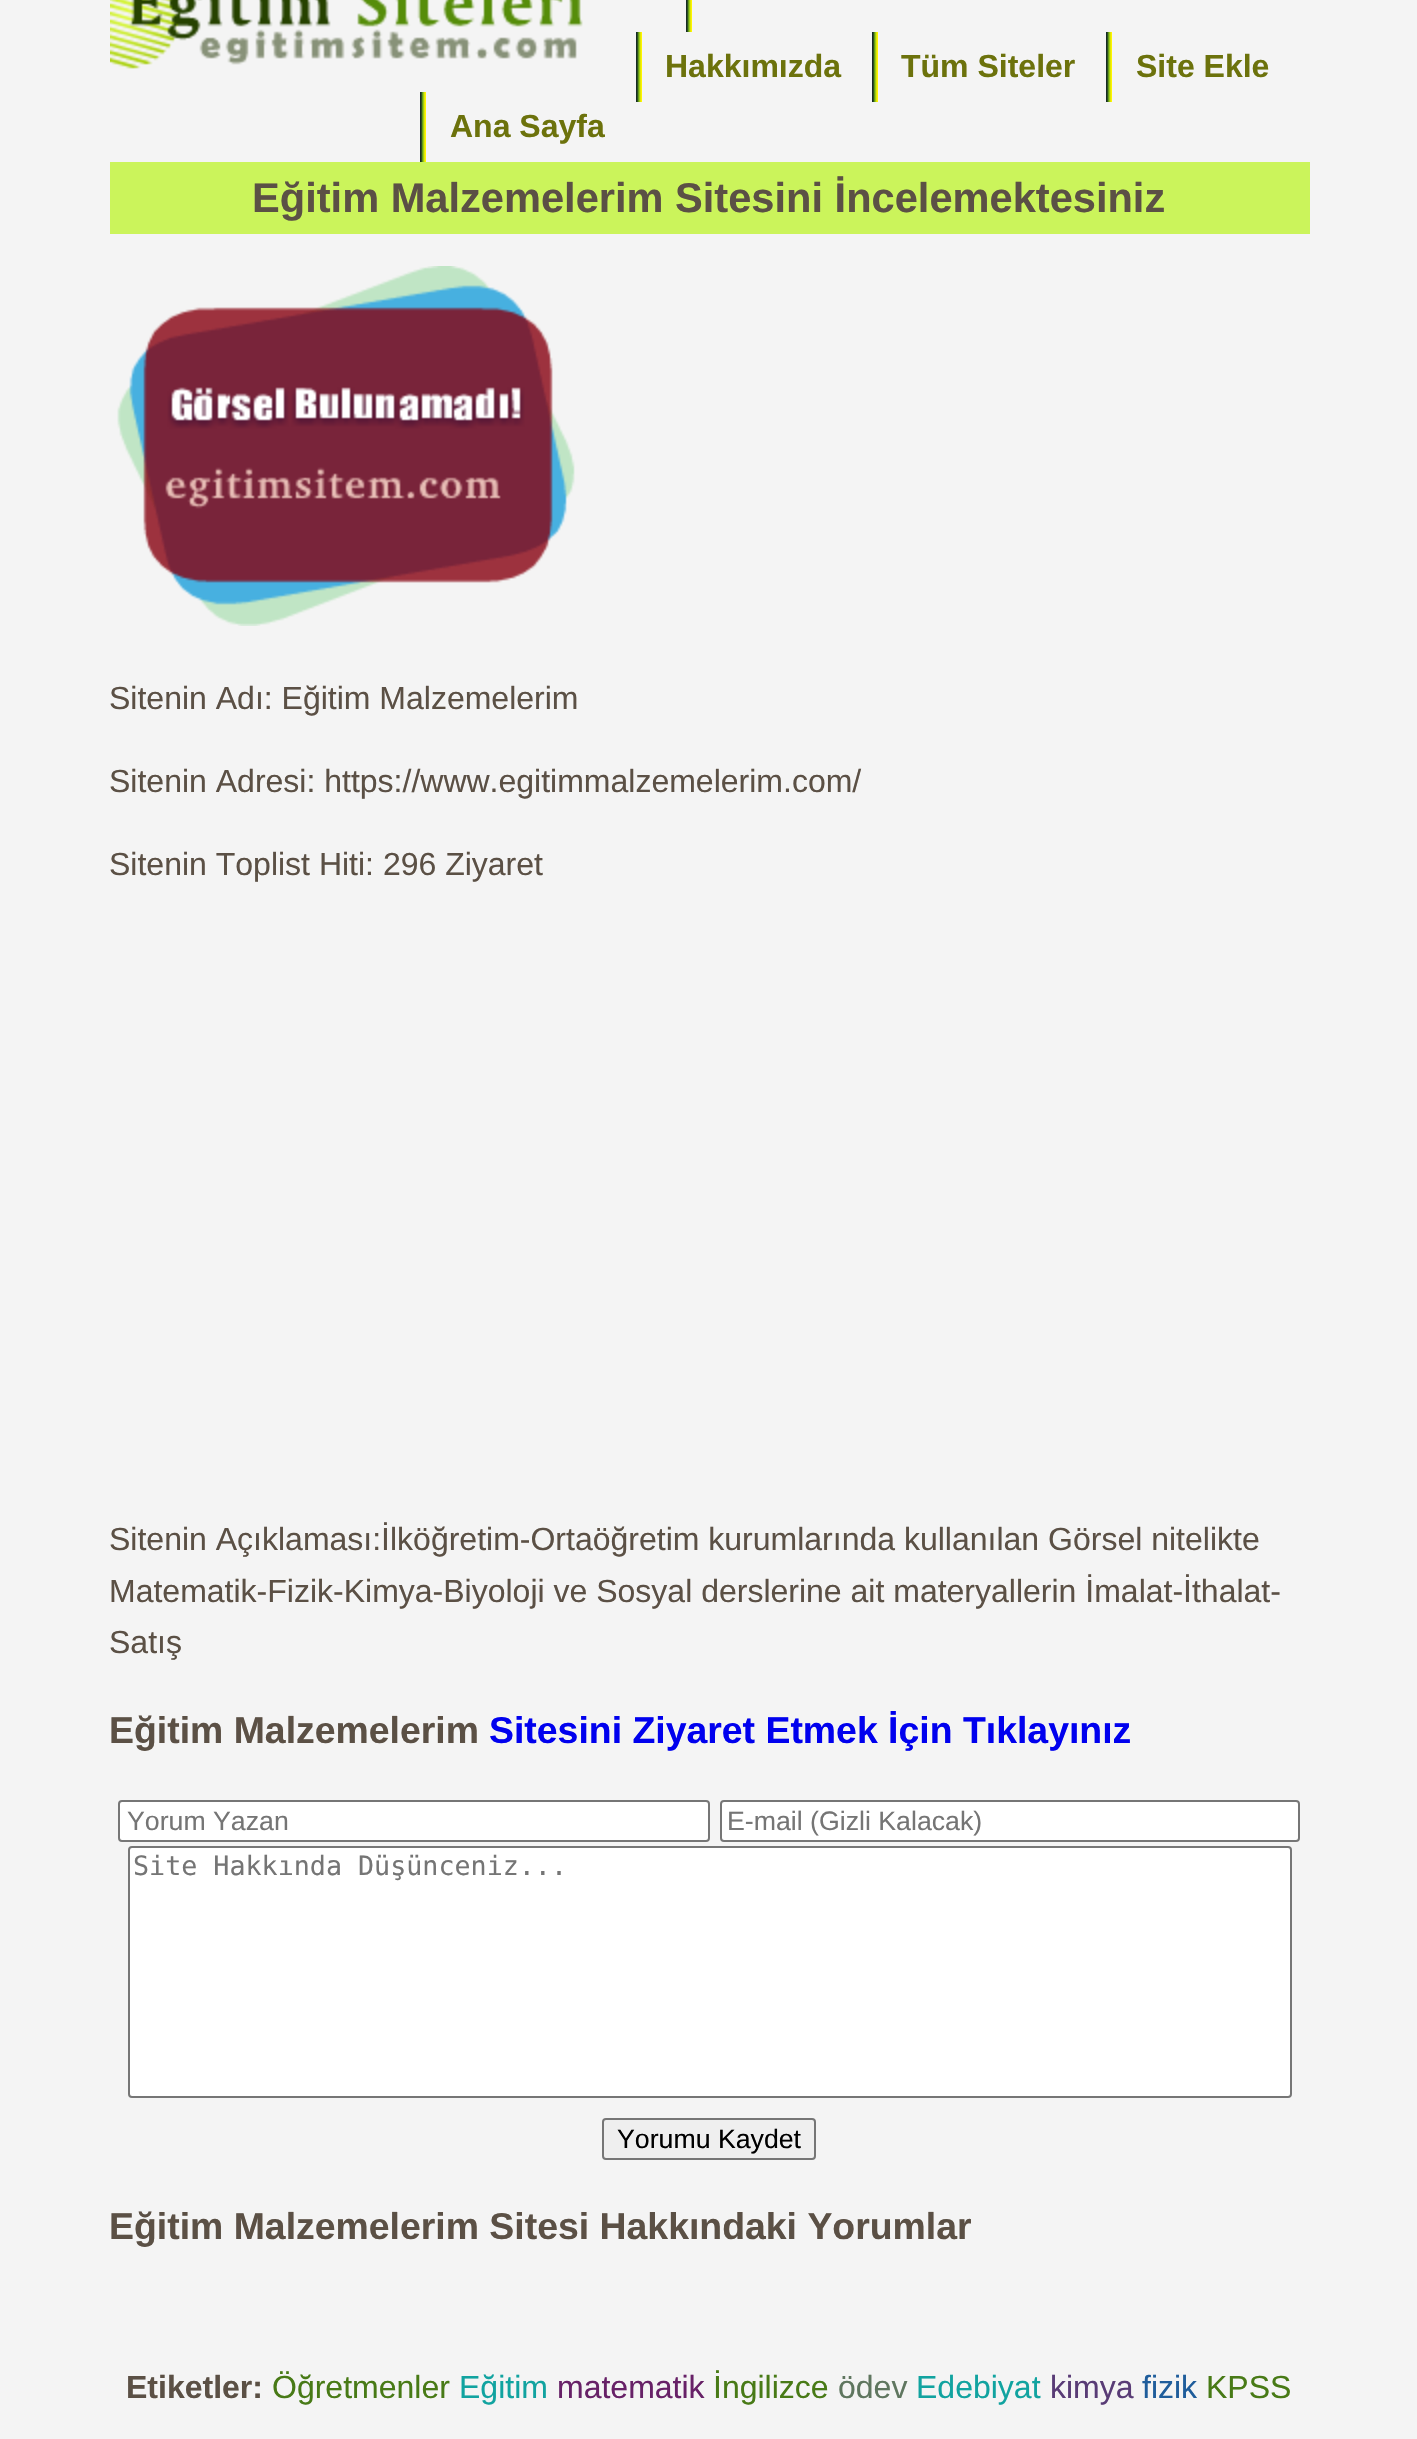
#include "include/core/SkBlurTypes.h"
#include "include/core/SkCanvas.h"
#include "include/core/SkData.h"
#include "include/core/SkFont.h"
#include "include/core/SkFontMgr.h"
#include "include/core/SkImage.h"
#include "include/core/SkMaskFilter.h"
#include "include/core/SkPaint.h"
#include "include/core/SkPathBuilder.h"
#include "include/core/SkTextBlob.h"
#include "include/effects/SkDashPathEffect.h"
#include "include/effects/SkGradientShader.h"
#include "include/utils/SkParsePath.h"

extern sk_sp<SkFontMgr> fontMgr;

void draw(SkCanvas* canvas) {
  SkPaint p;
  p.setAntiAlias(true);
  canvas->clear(SkColorSetRGB(244, 244, 244));
  canvas->drawImageRect(SkImages::DeferredFromEncodedData(SkData::MakeFromFileName("images/1.png")), SkRect::MakeLTRB(110, 0, 583, 69), SkSamplingOptions());
  canvas->drawImageRect(SkImages::DeferredFromEncodedData(SkData::MakeFromFileName("images/2.png")), SkRect::MakeLTRB(686, 0, 692, 32), SkSamplingOptions());
  canvas->drawImageRect(SkImages::DeferredFromEncodedData(SkData::MakeFromFileName("images/3.png")), SkRect::MakeLTRB(636, 32, 642, 102), SkSamplingOptions());
  canvas->drawImageRect(SkImages::DeferredFromEncodedData(SkData::MakeFromFileName("images/3.png")), SkRect::MakeLTRB(872, 32, 878, 102), SkSamplingOptions());
  canvas->drawImageRect(SkImages::DeferredFromEncodedData(SkData::MakeFromFileName("images/3.png")), SkRect::MakeLTRB(1106, 32, 1112, 102), SkSamplingOptions());
  canvas->drawImageRect(SkImages::DeferredFromEncodedData(SkData::MakeFromFileName("images/3.png")), SkRect::MakeLTRB(420, 92, 426, 162), SkSamplingOptions());
  p.setColor(SkColorSetRGB(203, 244, 91));
  canvas->drawRect(SkRect::MakeLTRB(110, 162, 1310, 234), p);
  canvas->drawImageRect(SkImages::DeferredFromEncodedData(SkData::MakeFromFileName("images/4.png")), SkRect::MakeLTRB(117, 266, 575, 626), SkSamplingOptions());
  p.setColor(SK_ColorWHITE);
  canvas->drawRoundRect(SkRect::MakeLTRB(119, 1801, 709, 1841), 3, 3, p);
  p.setStyle(SkPaint::kStroke_Style);
  p.setStrokeWidth(2);
  p.setColor(SkColorSetRGB(118, 118, 118));
  canvas->drawRoundRect(SkRect::MakeLTRB(119, 1801, 709, 1841), 3, 3, p);
  p.setStyle(SkPaint::kFill_Style);
  p.setColor(SK_ColorWHITE);
  canvas->drawRoundRect(SkRect::MakeLTRB(721, 1801, 1299, 1841), 3, 3, p);
  p.setStyle(SkPaint::kStroke_Style);
  p.setColor(SkColorSetRGB(118, 118, 118));
  canvas->drawRoundRect(SkRect::MakeLTRB(721, 1801, 1299, 1841), 3, 3, p);
  p.setStyle(SkPaint::kFill_Style);
  p.setColor(SK_ColorWHITE);
  canvas->drawRoundRect(SkRect::MakeLTRB(129, 1847, 1291, 2097), 3, 3, p);
  p.setStyle(SkPaint::kStroke_Style);
  p.setColor(SkColorSetRGB(118, 118, 118));
  canvas->drawRoundRect(SkRect::MakeLTRB(129, 1847, 1291, 2097), 3, 3, p);
  p.setStyle(SkPaint::kFill_Style);
  p.setColor(SkColorSetRGB(239, 239, 239));
  canvas->drawRoundRect(SkRect::MakeLTRB(603, 2119, 815, 2159), 3, 3, p);
  p.setStyle(SkPaint::kStroke_Style);
  p.setColor(SkColorSetRGB(118, 118, 118));
  canvas->drawRoundRect(SkRect::MakeLTRB(603, 2119, 815, 2159), 3, 3, p);
  SkFont font1(fontMgr->matchFamilyStyle("Liberation Sans", SkFontStyle::Bold()), 32);
  font1.setSubpixel(true);
  p.setStyle(SkPaint::kFill_Style);
  p.setColor(SkColorSetRGB(108, 114, 12));
  canvas->drawString("Hakkımızda", 665, 77, font1, p);
  canvas->drawString("Tüm Siteler", 901, 77, font1, p);
  canvas->drawString("Site Ekle", 1136, 77, font1, p);
  canvas->drawString("Ana Sayfa", 450, 137, font1, p);
  SkFont font2(fontMgr->matchFamilyStyle("Liberation Sans", SkFontStyle::Bold()), 41.6f);
  font2.setSubpixel(true);
  p.setColor(SkColorSetRGB(91, 80, 69));
  canvas->drawString("Eğitim Malzemelerim Sitesini İncelemektesiniz", 252, 212, font2, p);
  SkFont font3(fontMgr->matchFamilyStyle("Liberation Sans", SkFontStyle::Normal()), 32);
  font3.setSubpixel(true);
  canvas->drawString("Sitenin Adı: Eğitim Malzemelerim", 109, 709, font3, p);
  canvas->drawString("Sitenin Adresi: https://www.egitimmalzemelerim.com/", 109, 792, font3, p);
  canvas->drawString("Sitenin Toplist Hiti: 296 Ziyaret", 109, 875, font3, p);
  canvas->drawString("Sitenin Açıklaması:İlköğretim-Ortaöğretim kurumlarında kullanılan Görsel nitelikte", 109, 1550, font3, p);
  canvas->drawString("Matematik-Fizik-Kimya-Biyoloji ve Sosyal derslerine ait materyallerin İmalat-İthalat-", 109, 1602, font3, p);
  canvas->drawString("Satış", 109, 1653, font3, p);
  SkFont font4(fontMgr->matchFamilyStyle("Liberation Sans", SkFontStyle::Bold()), 37.4f);
  font4.setSubpixel(true);
  canvas->drawString("Eğitim Malzemelerim", 109, 1743, font4, p);
  p.setColor(SkColorSetRGB(0, 0, 238));
  canvas->drawString("Sitesini Ziyaret Etmek İçin Tıklayınız", 489, 1743, font4, p);
  SkFont font5(fontMgr->matchFamilyStyle("Liberation Sans", SkFontStyle::Normal()), 26.7f);
  font5.setSubpixel(true);
  p.setColor(SkColorSetRGB(117, 117, 117));
  canvas->drawString("Yorum Yazan", 127, 1830, font5, p);
  canvas->drawString("E-mail (Gizli Kalacak)", 727, 1830, font5, p);
  SkFont font6(fontMgr->matchFamilyStyle("DejaVu Sans Mono", SkFontStyle::Normal()), 26.7f);
  font6.setSubpixel(true);
  canvas->drawString("Site Hakkında Düşünceniz...", 133, 1875, font6, p);
  p.setColor(SK_ColorBLACK);
  canvas->drawString("Yorumu Kaydet", 617, 2148, font5, p);
  p.setColor(SkColorSetRGB(91, 80, 69));
  canvas->drawString("Eğitim Malzemelerim Sitesi Hakkındaki Yorumlar", 109, 2239, font4, p);
  canvas->drawString("Etiketler:", 126, 2398, font1, p);
  p.setColor(SkColorSetRGB(72, 122, 22));
  canvas->drawString("Öğretmenler", 272, 2398, font3, p);
  p.setColor(SkColorSetRGB(17, 163, 160));
  canvas->drawString("Eğitim", 459, 2398, font3, p);
  p.setColor(SkColorSetRGB(103, 33, 103));
  canvas->drawString("matematik", 557, 2398, font3, p);
  p.setColor(SkColorSetRGB(72, 122, 22));
  canvas->drawString("İngilizce", 713, 2398, font3, p);
  p.setColor(SkColorSetRGB(95, 118, 95));
  canvas->drawString("ödev", 838, 2398, font3, p);
  p.setColor(SkColorSetRGB(17, 163, 160));
  canvas->drawString("Edebiyat", 916, 2398, font3, p);
  p.setColor(SkColorSetRGB(89, 60, 118));
  canvas->drawString("kimya", 1050, 2398, font3, p);
  p.setColor(SkColorSetRGB(31, 93, 155));
  canvas->drawString("fizik", 1142, 2398, font3, p);
  p.setColor(SkColorSetRGB(72, 122, 22));
  canvas->drawString("KPSS", 1206, 2398, font3, p);
}
